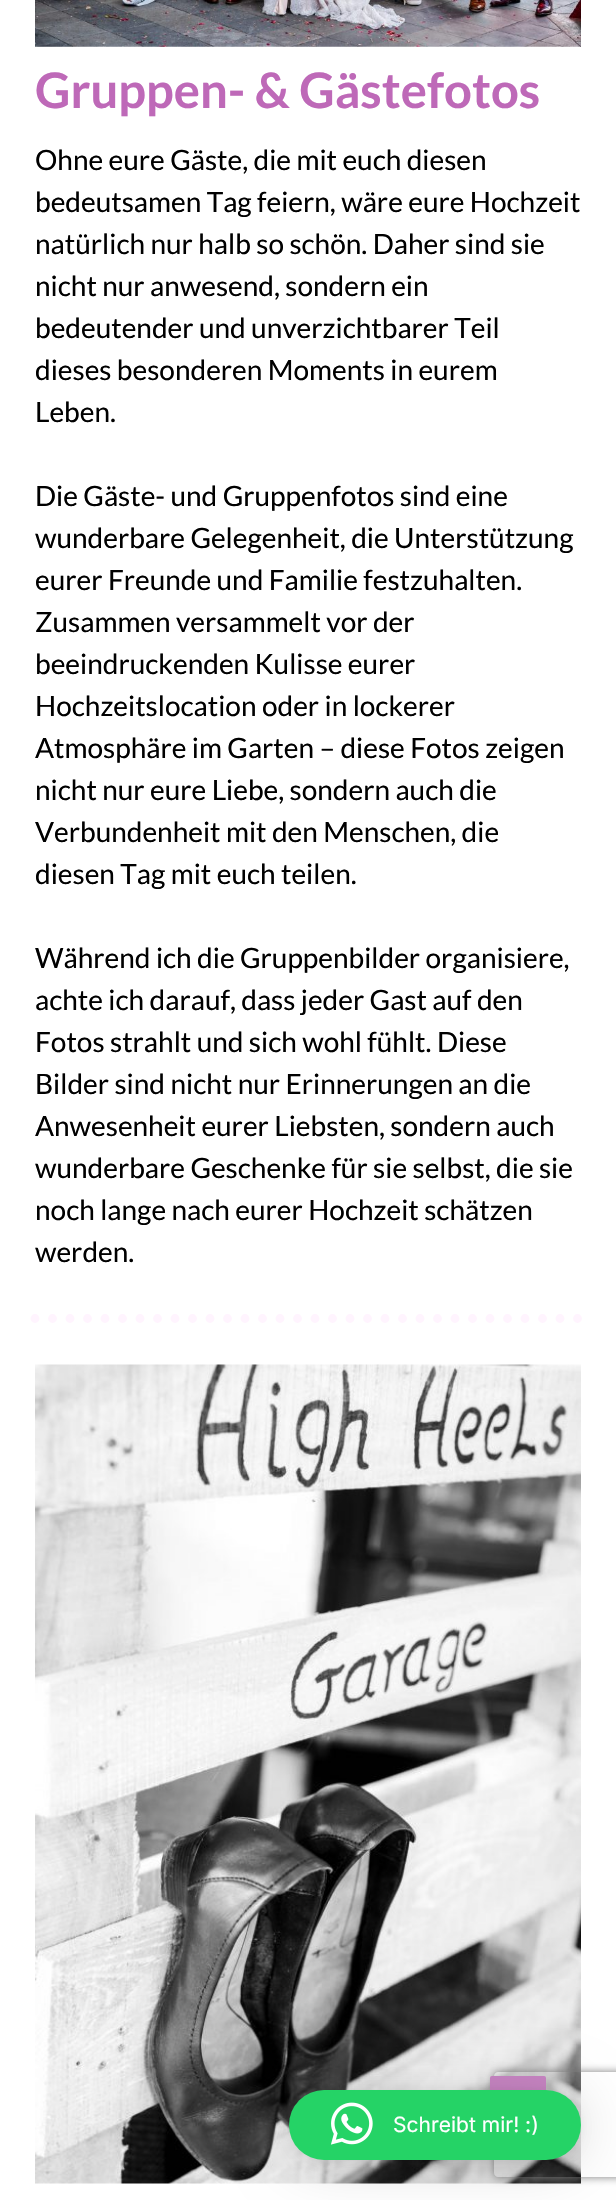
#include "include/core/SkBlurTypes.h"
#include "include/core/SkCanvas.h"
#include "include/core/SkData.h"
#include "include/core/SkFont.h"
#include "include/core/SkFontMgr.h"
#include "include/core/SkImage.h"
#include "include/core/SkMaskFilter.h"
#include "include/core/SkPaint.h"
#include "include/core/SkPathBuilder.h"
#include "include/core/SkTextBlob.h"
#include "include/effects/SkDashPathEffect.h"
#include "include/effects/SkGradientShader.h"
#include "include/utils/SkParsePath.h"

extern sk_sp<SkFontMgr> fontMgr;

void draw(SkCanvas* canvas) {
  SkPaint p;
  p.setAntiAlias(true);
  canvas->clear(SK_ColorWHITE);
  canvas->drawImageRect(SkImages::DeferredFromEncodedData(SkData::MakeFromFileName("images/1.png")), SkRect::MakeLTRB(35, 0, 581, 47), SkSamplingOptions());
  p.setStyle(SkPaint::kStroke_Style);
  p.setStrokeWidth(8.8f);
  p.setStrokeCap(SkPaint::kRound_Cap);
  p.setColor(SkColorSetRGB(255, 244, 254));
  p.setPathEffect(SkDashPathEffect::Make({{0, 17.5f}}, 0));
  canvas->drawPath(SkPathBuilder().moveTo(35, 1318.5f).lineTo(581, 1318.5f).detach(), p);
  p.setPathEffect(nullptr);
  canvas->drawImageRect(SkImages::DeferredFromEncodedData(SkData::MakeFromFileName("images/2.png")), SkRect::MakeLTRB(35, 1364, 581, 2184), SkSamplingOptions());
  canvas->save();
  canvas->clipPath(SkPathBuilder(SkPathFillType::kEvenOdd).moveTo(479, 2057).lineTo(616, 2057).lineTo(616, 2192).lineTo(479, 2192).close().moveTo(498, 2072).lineTo(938, 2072).cubicTo(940, 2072, 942, 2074, 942, 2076).lineTo(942, 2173).cubicTo(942, 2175, 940, 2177, 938, 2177).lineTo(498, 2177).cubicTo(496, 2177, 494, 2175, 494, 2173).lineTo(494, 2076).cubicTo(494, 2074, 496, 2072, 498, 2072).close().detach(), true);
  p.setStyle(SkPaint::kFill_Style);
  p.setColor(SkColorSetRGB(128, 128, 128));
  p.setMaskFilter(SkMaskFilter::MakeBlur(kNormal_SkBlurStyle, 4.5f));
  canvas->drawRoundRect(SkRect::MakeLTRB(494, 2072, 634, 2177), 4, 4, p);
  p.setMaskFilter(nullptr);
  canvas->restore();
  p.setColor(SkColorSetRGB(203, 135, 198));
  canvas->drawRoundRect(SkRect::MakeLTRB(490, 2076, 546, 2132), 2, 2, p);
  p.setColor(SkColorSetARGB(41, 0, 0, 0));
  p.setMaskFilter(SkMaskFilter::MakeBlur(kNormal_SkBlurStyle, 28));
  canvas->drawRoundRect(SkRect::MakeLTRB(289, 2093, 581, 2163), 35, 35, p);
  p.setMaskFilter(nullptr);
  p.setColor(SkColorSetARGB(15, 0, 0, 0));
  p.setMaskFilter(SkMaskFilter::MakeBlur(kNormal_SkBlurStyle, 5));
  canvas->drawRoundRect(SkRect::MakeLTRB(289, 2091, 581, 2161), 35, 35, p);
  p.setMaskFilter(nullptr);
  p.setColor(SkColorSetRGB(37, 211, 102));
  canvas->drawRoundRect(SkRect::MakeLTRB(289, 2090, 581, 2160), 35, 35, p);
  canvas->drawImageRect(SkImages::DeferredFromEncodedData(SkData::MakeFromFileName("images/3.png")), SkRect::MakeLTRB(330, 2102, 373, 2145), SkSamplingOptions());
  SkFont font1(fontMgr->matchFamilyStyle("Lato", SkFontStyle::Bold()), 49);
  font1.setSubpixel(true);
  p.setColor(SkColorSetRGB(190, 105, 184));
  canvas->drawString("Gruppen- & Gästefotos", 35, 108, font1, p);
  SkFont font2(fontMgr->matchFamilyStyle("Lato", SkFontStyle::Normal()), 28);
  font2.setSubpixel(true);
  p.setColor(SK_ColorBLACK);
  canvas->drawString("Ohne eure Gäste, die mit euch diesen", 35, 170, font2, p);
  canvas->drawString("bedeutsamen Tag feiern, wäre eure Hochzeit", 35, 212, font2, p);
  canvas->drawString("natürlich nur halb so schön. Daher sind sie", 35, 254, font2, p);
  canvas->drawString("nicht nur anwesend, sondern ein", 35, 296, font2, p);
  canvas->drawString("bedeutender und unverzichtbarer Teil", 35, 338, font2, p);
  canvas->drawString("dieses besonderen Moments in eurem", 35, 380, font2, p);
  canvas->drawString("Leben.", 35, 422, font2, p);
  canvas->drawString("Die Gäste- und Gruppenfotos sind eine", 35, 506, font2, p);
  canvas->drawString("wunderbare Gelegenheit, die Unterstützung", 35, 548, font2, p);
  canvas->drawString("eurer Freunde und Familie festzuhalten.", 35, 590, font2, p);
  canvas->drawString("Zusammen versammelt vor der", 35, 632, font2, p);
  canvas->drawString("beeindruckenden Kulisse eurer", 35, 674, font2, p);
  canvas->drawString("Hochzeitslocation oder in lockerer", 35, 716, font2, p);
  canvas->drawString("Atmosphäre im Garten – diese Fotos zeigen", 35, 758, font2, p);
  canvas->drawString("nicht nur eure Liebe, sondern auch die", 35, 800, font2, p);
  canvas->drawString("Verbundenheit mit den Menschen, die", 35, 842, font2, p);
  canvas->drawString("diesen Tag mit euch teilen.", 35, 884, font2, p);
  canvas->drawString("Während ich die Gruppenbilder organisiere,", 35, 968, font2, p);
  canvas->drawString("achte ich darauf, dass jeder Gast auf den", 35, 1010, font2, p);
  canvas->drawString("Fotos strahlt und sich wohl fühlt. Diese", 35, 1052, font2, p);
  canvas->drawString("Bilder sind nicht nur Erinnerungen an die", 35, 1094, font2, p);
  canvas->drawString("Anwesenheit eurer Liebsten, sondern auch", 35, 1136, font2, p);
  canvas->drawString("wunderbare Geschenke für sie selbst, die sie", 35, 1178, font2, p);
  canvas->drawString("noch lange nach eurer Hochzeit schätzen", 35, 1220, font2, p);
  canvas->drawString("werden.", 35, 1262, font2, p);
  SkFont font3(fontMgr->matchFamilyStyle("Inter", SkFontStyle::Normal()), 21);
  font3.setSubpixel(true);
  p.setColor(SK_ColorWHITE);
  canvas->drawString("Schreibt mir! :)", 393, 2132, font3, p);
}
